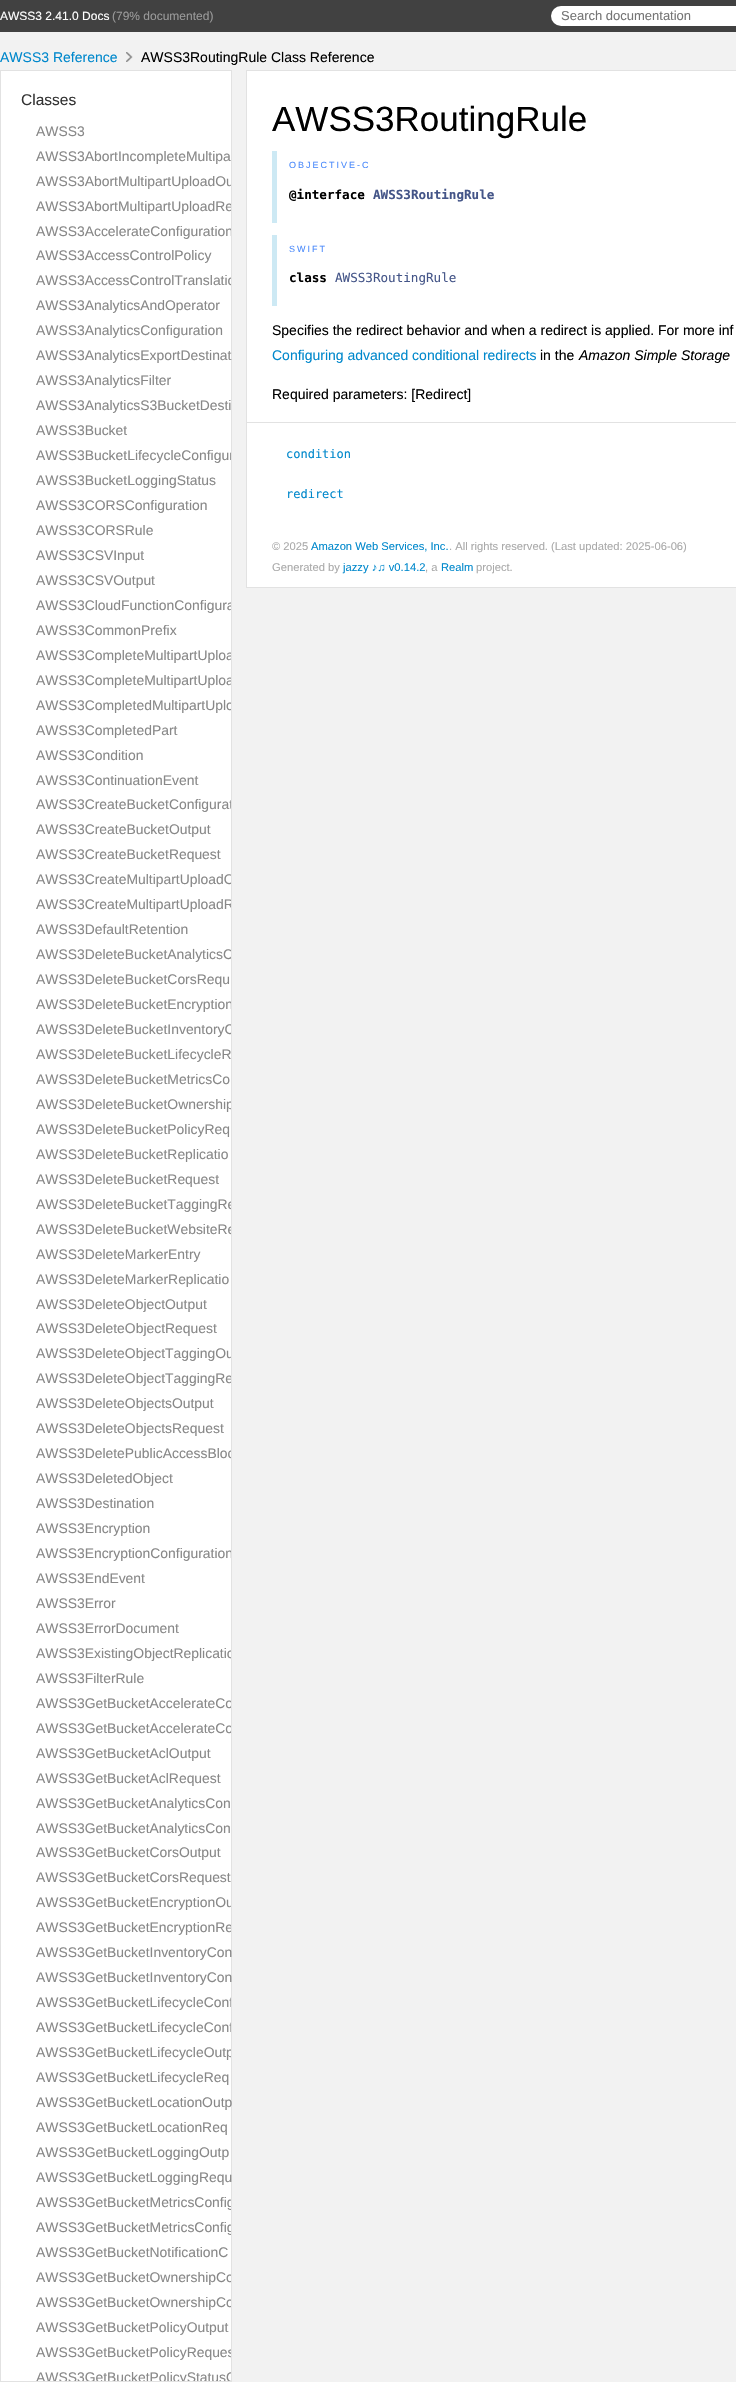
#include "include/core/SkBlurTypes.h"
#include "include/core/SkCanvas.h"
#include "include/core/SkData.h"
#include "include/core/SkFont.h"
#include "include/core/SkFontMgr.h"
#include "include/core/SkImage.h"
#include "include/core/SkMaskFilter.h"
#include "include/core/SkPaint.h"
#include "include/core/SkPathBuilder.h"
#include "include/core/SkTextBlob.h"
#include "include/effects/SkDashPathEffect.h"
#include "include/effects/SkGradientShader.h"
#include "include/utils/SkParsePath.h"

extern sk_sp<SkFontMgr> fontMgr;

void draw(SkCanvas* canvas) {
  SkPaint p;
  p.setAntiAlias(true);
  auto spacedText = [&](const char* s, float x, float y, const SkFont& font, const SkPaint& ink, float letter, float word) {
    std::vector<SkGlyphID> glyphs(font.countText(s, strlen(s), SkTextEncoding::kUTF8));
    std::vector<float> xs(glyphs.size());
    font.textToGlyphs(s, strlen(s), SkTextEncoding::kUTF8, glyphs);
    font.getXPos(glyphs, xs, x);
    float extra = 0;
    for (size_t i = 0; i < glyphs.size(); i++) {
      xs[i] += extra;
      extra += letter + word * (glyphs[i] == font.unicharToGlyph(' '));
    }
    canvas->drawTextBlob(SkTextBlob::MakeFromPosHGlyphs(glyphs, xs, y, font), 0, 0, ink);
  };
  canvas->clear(SkColorSetRGB(242, 242, 242));
  p.setColor(SkColorSetRGB(65, 65, 65));
  canvas->drawRect(SkRect::MakeLTRB(0, 0, 736, 32), p);
  p.setColor(SK_ColorWHITE);
  canvas->drawRoundRect(SkRect::MakeLTRB(551, 6, 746, 26), 10, 10, p);
  canvas->drawImageRect(SkImages::DeferredFromEncodedData(SkData::MakeFromFileName("images/1.png")), SkRect::MakeLTRB(126, 52, 133, 62), SkSamplingOptions());
  p.setStyle(SkPaint::kStroke_Style);
  p.setStrokeWidth(1);
  p.setColor(SkColorSetRGB(226, 226, 226));
  canvas->drawRect(SkRect::MakeLTRB(0.5f, 70.5f, 231.5f, 2381.5f), p);
  p.setStyle(SkPaint::kFill_Style);
  p.setColor(SK_ColorWHITE);
  canvas->drawRect(SkRect::MakeLTRB(1, 71, 231, 2381), p);
  canvas->drawRect(SkRect::MakeLTRB(246.5f, 70.5f, 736.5f, 587.5f), p);
  p.setStyle(SkPaint::kStroke_Style);
  p.setColor(SkColorSetRGB(226, 226, 226));
  canvas->drawRect(SkRect::MakeLTRB(246.5f, 70.5f, 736.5f, 587.5f), p);
  p.setStyle(SkPaint::kFill_Style);
  p.setColor(SkColorSetRGB(205, 233, 244));
  canvas->drawRect(SkRect::MakeLTRB(272, 151, 277, 223), p);
  canvas->drawRect(SkRect::MakeLTRB(272, 235, 277, 306), p);
  p.setColor(SkColorSetRGB(226, 226, 226));
  canvas->drawRect(SkRect::MakeLTRB(247, 422, 736, 423), p);
  SkFont font1(fontMgr->matchFamilyStyle("Liberation Sans", SkFontStyle::Normal()), 12);
  font1.setSubpixel(true);
  p.setColor(SK_ColorWHITE);
  canvas->drawString("AWSS3 2.41.0 Docs", 0, 20, font1, p);
  p.setColor(SkColorSetRGB(153, 153, 153));
  canvas->drawString("(79% documented)", 112, 20, font1, p);
  SkFont font2(fontMgr->matchFamilyStyle("Liberation Sans", SkFontStyle::Normal()), 13);
  font2.setSubpixel(true);
  p.setColor(SkColorSetRGB(117, 117, 117));
  canvas->drawString("Search documentation", 561, 20, font2, p);
  SkFont font3(fontMgr->matchFamilyStyle("Liberation Sans", SkFontStyle::Normal()), 14);
  font3.setSubpixel(true);
  p.setColor(SkColorSetRGB(0, 136, 204));
  canvas->drawString("AWSS3 Reference", 0, 62, font3, p);
  p.setColor(SK_ColorBLACK);
  canvas->drawString("AWSS3RoutingRule Class Reference", 141, 62, font3, p);
  SkFont font4(fontMgr->matchFamilyStyle("Liberation Sans", SkFontStyle::Normal()), 15.5f);
  font4.setSubpixel(true);
  p.setColor(SkColorSetRGB(51, 51, 51));
  canvas->drawString("Classes", 21, 105, font4, p);
  SkFont font5(fontMgr->matchFamilyStyle("Liberation Sans", SkFontStyle::Normal()), 13.9f);
  font5.setSubpixel(true);
  p.setColor(SkColorSetRGB(136, 136, 136));
  canvas->drawString("AWSS3", 36, 136, font5, p);
  canvas->drawString("AWSS3AbortIncompleteMultipa", 36, 161, font5, p);
  canvas->save();
  canvas->clipRect(SkRect::MakeLTRB(1, 71, 231, 2381));
  canvas->drawString("AWSS3AbortMultipartUploadOu", 36, 186, font5, p);
  canvas->drawString("AWSS3AbortMultipartUploadRe", 36, 211, font5, p);
  canvas->drawString("AWSS3AccelerateConfiguration", 36, 236, font5, p);
  canvas->restore();
  canvas->drawString("AWSS3AccessControlPolicy", 36, 260, font5, p);
  canvas->save();
  canvas->clipRect(SkRect::MakeLTRB(1, 71, 231, 2381));
  canvas->drawString("AWSS3AccessControlTranslatio", 36, 285, font5, p);
  canvas->restore();
  canvas->drawString("AWSS3AnalyticsAndOperator", 36, 310, font5, p);
  canvas->drawString("AWSS3AnalyticsConfiguration", 36, 335, font5, p);
  canvas->drawString("AWSS3AnalyticsExportDestinat", 36, 360, font5, p);
  canvas->drawString("AWSS3AnalyticsFilter", 36, 385, font5, p);
  canvas->drawString("AWSS3AnalyticsS3BucketDesti", 36, 410, font5, p);
  canvas->drawString("AWSS3Bucket", 36, 435, font5, p);
  canvas->save();
  canvas->clipRect(SkRect::MakeLTRB(1, 71, 231, 2381));
  canvas->drawString("AWSS3BucketLifecycleConfigur", 36, 460, font5, p);
  canvas->restore();
  canvas->drawString("AWSS3BucketLoggingStatus", 36, 485, font5, p);
  canvas->drawString("AWSS3CORSConfiguration", 36, 510, font5, p);
  canvas->drawString("AWSS3CORSRule", 36, 535, font5, p);
  canvas->drawString("AWSS3CSVInput", 36, 560, font5, p);
  canvas->drawString("AWSS3CSVOutput", 36, 585, font5, p);
  canvas->save();
  canvas->clipRect(SkRect::MakeLTRB(1, 71, 231, 2381));
  canvas->drawString("AWSS3CloudFunctionConfigura", 36, 610, font5, p);
  canvas->restore();
  canvas->drawString("AWSS3CommonPrefix", 36, 635, font5, p);
  canvas->save();
  canvas->clipRect(SkRect::MakeLTRB(1, 71, 231, 2381));
  canvas->drawString("AWSS3CompleteMultipartUploa", 36, 660, font5, p);
  canvas->drawString("AWSS3CompleteMultipartUploa", 36, 685, font5, p);
  canvas->drawString("AWSS3CompletedMultipartUplo", 36, 710, font5, p);
  canvas->restore();
  canvas->drawString("AWSS3CompletedPart", 36, 735, font5, p);
  canvas->drawString("AWSS3Condition", 36, 760, font5, p);
  canvas->drawString("AWSS3ContinuationEvent", 36, 785, font5, p);
  canvas->save();
  canvas->clipRect(SkRect::MakeLTRB(1, 71, 231, 2381));
  canvas->drawString("AWSS3CreateBucketConfigurat", 36, 809, font5, p);
  canvas->restore();
  canvas->drawString("AWSS3CreateBucketOutput", 36, 834, font5, p);
  canvas->drawString("AWSS3CreateBucketRequest", 36, 859, font5, p);
  canvas->save();
  canvas->clipRect(SkRect::MakeLTRB(1, 71, 231, 2381));
  canvas->drawString("AWSS3CreateMultipartUploadO", 36, 884, font5, p);
  canvas->drawString("AWSS3CreateMultipartUploadR", 36, 909, font5, p);
  canvas->restore();
  canvas->drawString("AWSS3DefaultRetention", 36, 934, font5, p);
  canvas->save();
  canvas->clipRect(SkRect::MakeLTRB(1, 71, 231, 2381));
  canvas->drawString("AWSS3DeleteBucketAnalyticsC", 36, 959, font5, p);
  canvas->restore();
  canvas->drawString("AWSS3DeleteBucketCorsRequ", 36, 984, font5, p);
  canvas->save();
  canvas->clipRect(SkRect::MakeLTRB(1, 71, 231, 2381));
  canvas->drawString("AWSS3DeleteBucketEncryption", 36, 1009, font5, p);
  canvas->drawString("AWSS3DeleteBucketInventoryC", 36, 1034, font5, p);
  canvas->restore();
  canvas->drawString("AWSS3DeleteBucketLifecycleR", 36, 1059, font5, p);
  canvas->drawString("AWSS3DeleteBucketMetricsCo", 36, 1084, font5, p);
  canvas->save();
  canvas->clipRect(SkRect::MakeLTRB(1, 71, 231, 2381));
  canvas->drawString("AWSS3DeleteBucketOwnership", 36, 1109, font5, p);
  canvas->restore();
  canvas->drawString("AWSS3DeleteBucketPolicyReq", 36, 1134, font5, p);
  canvas->drawString("AWSS3DeleteBucketReplicatio", 36, 1159, font5, p);
  canvas->drawString("AWSS3DeleteBucketRequest", 36, 1184, font5, p);
  canvas->save();
  canvas->clipRect(SkRect::MakeLTRB(1, 71, 231, 2381));
  canvas->drawString("AWSS3DeleteBucketTaggingRe", 36, 1209, font5, p);
  canvas->drawString("AWSS3DeleteBucketWebsiteRe", 36, 1234, font5, p);
  canvas->restore();
  canvas->drawString("AWSS3DeleteMarkerEntry", 36, 1259, font5, p);
  canvas->drawString("AWSS3DeleteMarkerReplicatio", 36, 1284, font5, p);
  canvas->drawString("AWSS3DeleteObjectOutput", 36, 1309, font5, p);
  canvas->drawString("AWSS3DeleteObjectRequest", 36, 1333, font5, p);
  canvas->save();
  canvas->clipRect(SkRect::MakeLTRB(1, 71, 231, 2381));
  canvas->drawString("AWSS3DeleteObjectTaggingOu", 36, 1358, font5, p);
  canvas->drawString("AWSS3DeleteObjectTaggingRe", 36, 1383, font5, p);
  canvas->restore();
  canvas->drawString("AWSS3DeleteObjectsOutput", 36, 1408, font5, p);
  canvas->drawString("AWSS3DeleteObjectsRequest", 36, 1433, font5, p);
  canvas->save();
  canvas->clipRect(SkRect::MakeLTRB(1, 71, 231, 2381));
  canvas->drawString("AWSS3DeletePublicAccessBloc", 36, 1458, font5, p);
  canvas->restore();
  canvas->drawString("AWSS3DeletedObject", 36, 1483, font5, p);
  canvas->drawString("AWSS3Destination", 36, 1508, font5, p);
  canvas->drawString("AWSS3Encryption", 36, 1533, font5, p);
  canvas->save();
  canvas->clipRect(SkRect::MakeLTRB(1, 71, 231, 2381));
  canvas->drawString("AWSS3EncryptionConfiguration", 36, 1558, font5, p);
  canvas->restore();
  canvas->drawString("AWSS3EndEvent", 36, 1583, font5, p);
  canvas->drawString("AWSS3Error", 36, 1608, font5, p);
  canvas->drawString("AWSS3ErrorDocument", 36, 1633, font5, p);
  canvas->save();
  canvas->clipRect(SkRect::MakeLTRB(1, 71, 231, 2381));
  canvas->drawString("AWSS3ExistingObjectReplicatio", 36, 1658, font5, p);
  canvas->restore();
  canvas->drawString("AWSS3FilterRule", 36, 1683, font5, p);
  canvas->save();
  canvas->clipRect(SkRect::MakeLTRB(1, 71, 231, 2381));
  canvas->drawString("AWSS3GetBucketAccelerateCo", 36, 1708, font5, p);
  canvas->drawString("AWSS3GetBucketAccelerateCo", 36, 1733, font5, p);
  canvas->restore();
  canvas->drawString("AWSS3GetBucketAclOutput", 36, 1758, font5, p);
  canvas->drawString("AWSS3GetBucketAclRequest", 36, 1783, font5, p);
  canvas->drawString("AWSS3GetBucketAnalyticsCon", 36, 1808, font5, p);
  canvas->drawString("AWSS3GetBucketAnalyticsCon", 36, 1833, font5, p);
  canvas->drawString("AWSS3GetBucketCorsOutput", 36, 1857, font5, p);
  canvas->drawString("AWSS3GetBucketCorsRequest", 36, 1882, font5, p);
  canvas->save();
  canvas->clipRect(SkRect::MakeLTRB(1, 71, 231, 2381));
  canvas->drawString("AWSS3GetBucketEncryptionOu", 36, 1907, font5, p);
  canvas->drawString("AWSS3GetBucketEncryptionRe", 36, 1932, font5, p);
  canvas->restore();
  canvas->drawString("AWSS3GetBucketInventoryCon", 36, 1957, font5, p);
  canvas->drawString("AWSS3GetBucketInventoryCon", 36, 1982, font5, p);
  canvas->save();
  canvas->clipRect(SkRect::MakeLTRB(1, 71, 231, 2381));
  canvas->drawString("AWSS3GetBucketLifecycleConf", 36, 2007, font5, p);
  canvas->drawString("AWSS3GetBucketLifecycleConf", 36, 2032, font5, p);
  canvas->drawString("AWSS3GetBucketLifecycleOutp", 36, 2057, font5, p);
  canvas->restore();
  canvas->drawString("AWSS3GetBucketLifecycleReq", 36, 2082, font5, p);
  canvas->drawString("AWSS3GetBucketLocationOutp", 36, 2107, font5, p);
  canvas->drawString("AWSS3GetBucketLocationReq", 36, 2132, font5, p);
  canvas->drawString("AWSS3GetBucketLoggingOutp", 36, 2157, font5, p);
  canvas->drawString("AWSS3GetBucketLoggingRequ", 36, 2182, font5, p);
  canvas->save();
  canvas->clipRect(SkRect::MakeLTRB(1, 71, 231, 2381));
  canvas->drawString("AWSS3GetBucketMetricsConfig", 36, 2207, font5, p);
  canvas->drawString("AWSS3GetBucketMetricsConfig", 36, 2232, font5, p);
  canvas->restore();
  canvas->drawString("AWSS3GetBucketNotificationC", 36, 2257, font5, p);
  canvas->save();
  canvas->clipRect(SkRect::MakeLTRB(1, 71, 231, 2381));
  canvas->drawString("AWSS3GetBucketOwnershipCo", 36, 2282, font5, p);
  canvas->drawString("AWSS3GetBucketOwnershipCo", 36, 2307, font5, p);
  canvas->restore();
  canvas->drawString("AWSS3GetBucketPolicyOutput", 36, 2332, font5, p);
  canvas->save();
  canvas->clipRect(SkRect::MakeLTRB(1, 71, 231, 2381));
  canvas->drawString("AWSS3GetBucketPolicyReques", 36, 2357, font5, p);
  canvas->drawString("AWSS3GetBucketPolicyStatusO", 36, 2382, font5, p);
  canvas->restore();
  SkFont font6(fontMgr->matchFamilyStyle("Liberation Sans", SkFontStyle::Normal()), 35);
  font6.setSubpixel(true);
  p.setColor(SK_ColorBLACK);
  canvas->drawString("AWSS3RoutingRule", 272, 131, font6, p);
  SkFont font7(fontMgr->matchFamilyStyle("Liberation Sans", SkFontStyle::Normal()), 9);
  font7.setSubpixel(true);
  p.setColor(SkColorSetRGB(75, 138, 251));
  spacedText("OBJECTIVE-C", 289, 168, font7, p, 2, 0);
  SkFont font8(fontMgr->matchFamilyStyle("DejaVu Sans Mono", SkFontStyle::Bold()), 12.6f);
  font8.setSubpixel(true);
  p.setColor(SK_ColorBLACK);
  canvas->drawString("@interface", 289, 199, font8, p);
  p.setColor(SkColorSetRGB(68, 85, 136));
  canvas->drawString("AWSS3RoutingRule", 373, 199, font8, p);
  p.setColor(SkColorSetRGB(75, 138, 251));
  spacedText("SWIFT", 289, 252, font7, p, 2, 0);
  p.setColor(SK_ColorBLACK);
  canvas->drawString("class", 289, 282, font8, p);
  SkFont font9(fontMgr->matchFamilyStyle("DejaVu Sans Mono", SkFontStyle::Normal()), 12.6f);
  font9.setSubpixel(true);
  p.setColor(SkColorSetRGB(68, 85, 136));
  canvas->drawString("AWSS3RoutingRule", 335, 282, font9, p);
  p.setColor(SK_ColorBLACK);
  canvas->drawString("Specifies the redirect behavior and when a redirect is applied. For more inf", 272, 335, font3, p);
  p.setColor(SkColorSetRGB(0, 136, 204));
  canvas->drawString("Configuring advanced conditional redirects", 272, 360, font3, p);
  p.setColor(SK_ColorBLACK);
  canvas->drawString("in the", 540, 360, font3, p);
  SkFont font10(fontMgr->matchFamilyStyle("Liberation Sans", SkFontStyle::Italic()), 14);
  font10.setSubpixel(true);
  canvas->drawString("Amazon Simple Storage", 579, 360, font10, p);
  canvas->drawString("Required parameters: [Redirect]", 272, 399, font3, p);
  SkFont font11(fontMgr->matchFamilyStyle("DejaVu Sans Mono", SkFontStyle::Normal()), 12);
  font11.setSubpixel(true);
  p.setColor(SkColorSetRGB(0, 136, 204));
  canvas->drawString("condition", 286, 458, font11, p);
  canvas->drawString("redirect", 286, 498, font11, p);
  SkFont font12(fontMgr->matchFamilyStyle("Liberation Sans", SkFontStyle::Normal()), 11.2f);
  font12.setSubpixel(true);
  p.setColor(SkColorSetRGB(170, 170, 170));
  canvas->drawString("© 2025", 272, 550, font12, p);
  p.setColor(SkColorSetRGB(0, 136, 204));
  canvas->drawString("Amazon Web Services, Inc.", 311, 550, font12, p);
  p.setColor(SkColorSetRGB(170, 170, 170));
  canvas->drawString(". All rights reserved. (Last updated: 2025-06-06)", 449, 550, font12, p);
  canvas->drawString("Generated by", 272, 571, font12, p);
  p.setColor(SkColorSetRGB(0, 136, 204));
  canvas->drawString("jazzy ♪♫ v0.14.2", 343, 571, font12, p);
  p.setColor(SkColorSetRGB(170, 170, 170));
  canvas->drawString(", a", 425, 571, font12, p);
  p.setColor(SkColorSetRGB(0, 136, 204));
  canvas->drawString("Realm", 441, 571, font12, p);
  p.setColor(SkColorSetRGB(170, 170, 170));
  canvas->drawString("project.", 476, 571, font12, p);
}
